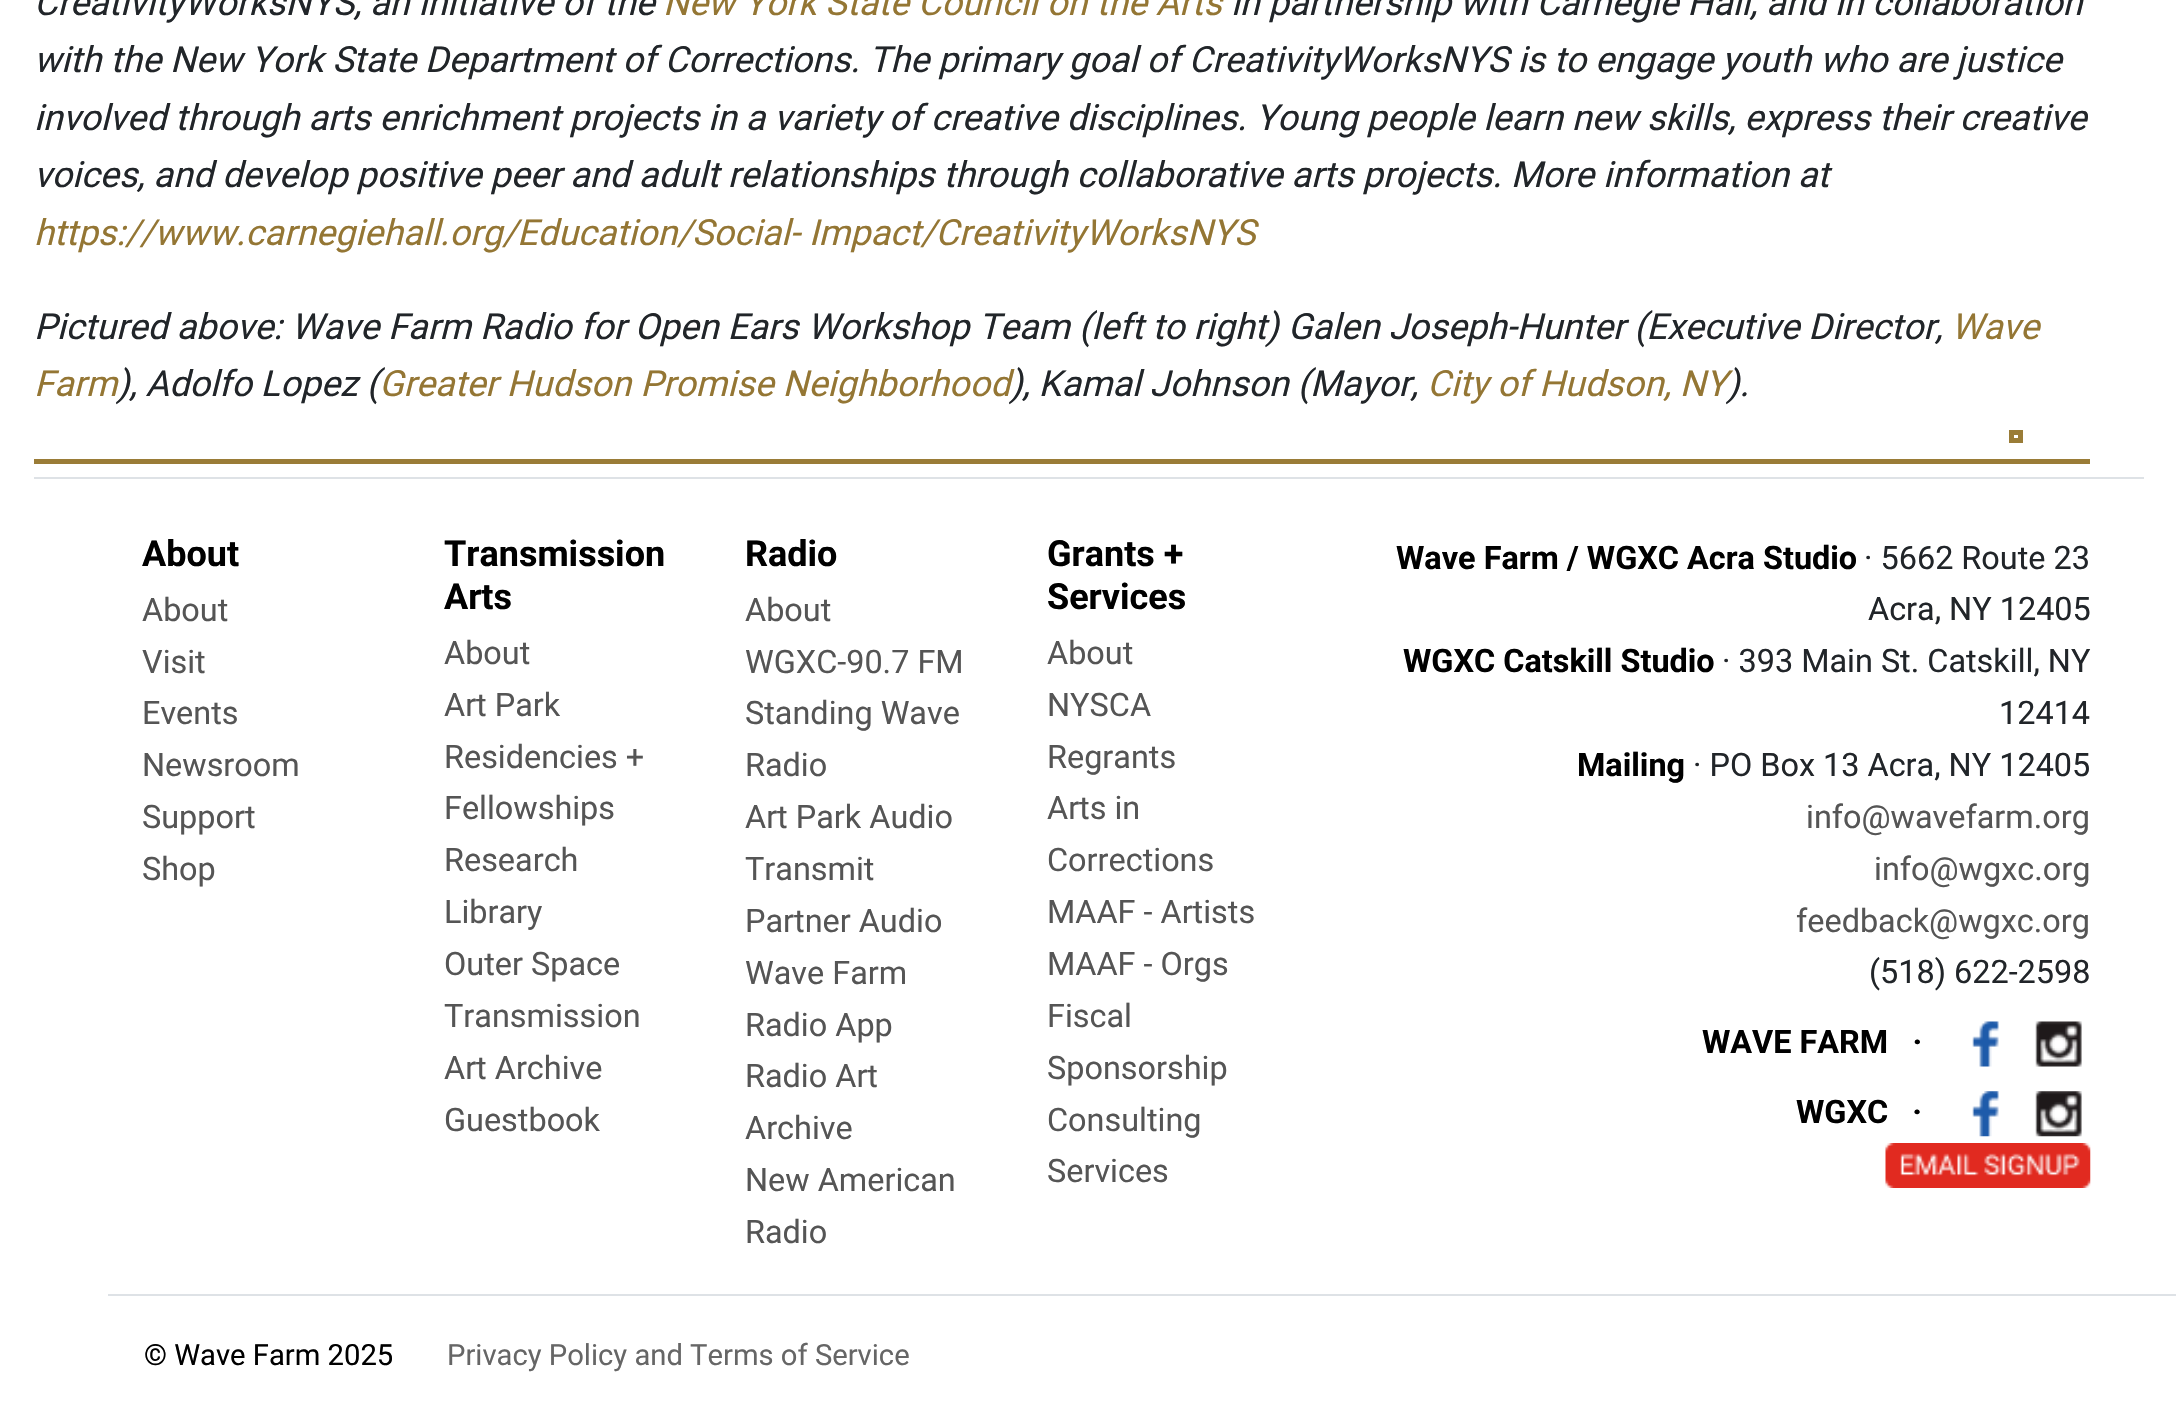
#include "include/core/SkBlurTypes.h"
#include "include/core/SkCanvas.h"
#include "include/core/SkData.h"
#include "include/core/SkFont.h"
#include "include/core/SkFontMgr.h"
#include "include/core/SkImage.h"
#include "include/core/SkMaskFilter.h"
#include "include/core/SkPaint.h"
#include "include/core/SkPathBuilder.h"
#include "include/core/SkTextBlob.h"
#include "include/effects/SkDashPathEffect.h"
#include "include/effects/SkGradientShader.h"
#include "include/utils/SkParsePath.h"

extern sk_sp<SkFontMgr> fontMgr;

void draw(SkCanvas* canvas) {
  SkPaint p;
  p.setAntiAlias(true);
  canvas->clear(SK_ColorWHITE);
  p.setColor(SkColorSetRGB(154, 124, 55));
  canvas->drawRect(SkRect::MakeLTRB(34, 459, 2090, 464), p);
  p.setStyle(SkPaint::kStroke_Style);
  p.setStrokeWidth(5);
  canvas->drawRect(SkRect::MakeLTRB(2011.5f, 432.5f, 2020.5f, 440.5f), p);
  p.setStyle(SkPaint::kFill_Style);
  p.setColor(SkColorSetRGB(222, 226, 230));
  canvas->drawRect(SkRect::MakeLTRB(34, 477, 2144, 479), p);
  canvas->drawRect(SkRect::MakeLTRB(108, 1294, 2176, 1296), p);
  canvas->drawImageRect(SkImages::DeferredFromEncodedData(SkData::MakeFromFileName("images/1.png")), SkRect::MakeLTRB(1972, 1021, 1999, 1067), SkSamplingOptions());
  canvas->drawImageRect(SkImages::DeferredFromEncodedData(SkData::MakeFromFileName("images/2.png")), SkRect::MakeLTRB(2035, 1021, 2082, 1067), SkSamplingOptions());
  canvas->drawImageRect(SkImages::DeferredFromEncodedData(SkData::MakeFromFileName("images/3.png")), SkRect::MakeLTRB(1972, 1091, 1999, 1137), SkSamplingOptions());
  canvas->drawImageRect(SkImages::DeferredFromEncodedData(SkData::MakeFromFileName("images/4.png")), SkRect::MakeLTRB(2035, 1091, 2082, 1137), SkSamplingOptions());
  canvas->drawImageRect(SkImages::DeferredFromEncodedData(SkData::MakeFromFileName("images/5.png")), SkRect::MakeLTRB(1885, 1143, 2091, 1188), SkSamplingOptions());
  SkFont font1(fontMgr->matchFamilyStyle("Roboto", SkFontStyle::Italic()), 36);
  font1.setSubpixel(true);
  p.setColor(SkColorSetRGB(33, 37, 41));
  canvas->drawString("CreativityWorksNYS, an initiative of the", 34, 15, font1, p);
  p.setColor(SkColorSetRGB(148, 118, 52));
  canvas->drawString("New York State Council on the Arts", 663, 15, font1, p);
  p.setColor(SkColorSetRGB(33, 37, 41));
  canvas->drawString("in partnership with Carnegie Hall, and in collaboration", 1231, 15, font1, p);
  canvas->drawString("with the New York State Department of Corrections. The primary goal of CreativityWorksNYS is to engage youth who are justice", 34, 72, font1, p);
  canvas->drawString("involved through arts enrichment projects in a variety of creative disciplines. Young people learn new skills, express their creative", 34, 130, font1, p);
  canvas->drawString("voices, and develop positive peer and adult relationships through collaborative arts projects. More information at", 34, 187, font1, p);
  p.setColor(SkColorSetRGB(148, 118, 52));
  canvas->drawString("https://www.carnegiehall.org/Education/Social- Impact/CreativityWorksNYS", 34, 245, font1, p);
  p.setColor(SkColorSetRGB(33, 37, 41));
  canvas->drawString("Pictured above: Wave Farm Radio for Open Ears Workshop Team (left to right) Galen Joseph-Hunter (Executive Director,", 34, 339, font1, p);
  p.setColor(SkColorSetRGB(148, 118, 52));
  canvas->drawString("Wave", 1951, 339, font1, p);
  canvas->drawString("Farm", 34, 396, font1, p);
  p.setColor(SkColorSetRGB(33, 37, 41));
  canvas->drawString("), Adolfo Lopez (", 117, 396, font1, p);
  p.setColor(SkColorSetRGB(148, 118, 52));
  canvas->drawString("Greater Hudson Promise Neighborhood", 379, 396, font1, p);
  p.setColor(SkColorSetRGB(33, 37, 41));
  canvas->drawString("), Kamal Johnson (Mayor,", 1010, 396, font1, p);
  p.setColor(SkColorSetRGB(148, 118, 52));
  canvas->drawString("City of Hudson, NY", 1427, 396, font1, p);
  p.setColor(SkColorSetRGB(33, 37, 41));
  canvas->drawString(").", 1727, 396, font1, p);
  SkFont font2(fontMgr->matchFamilyStyle("Roboto", SkFontStyle::Bold()), 36);
  font2.setSubpixel(true);
  p.setColor(SK_ColorBLACK);
  canvas->drawString("About", 142, 566, font2, p);
  SkFont font3(fontMgr->matchFamilyStyle("Roboto", SkFontStyle::Normal()), 32.4f);
  font3.setSubpixel(true);
  p.setColor(SkColorSetRGB(85, 85, 85));
  canvas->drawString("About", 142, 621, font3, p);
  canvas->drawString("Visit", 142, 673, font3, p);
  canvas->drawString("Events", 142, 724, font3, p);
  canvas->drawString("Newsroom", 142, 776, font3, p);
  canvas->drawString("Support", 142, 828, font3, p);
  canvas->drawString("Shop", 142, 880, font3, p);
  p.setColor(SK_ColorBLACK);
  canvas->drawString("Transmission", 444, 566, font2, p);
  canvas->drawString("Arts", 444, 609, font2, p);
  p.setColor(SkColorSetRGB(85, 85, 85));
  canvas->drawString("About", 444, 664, font3, p);
  canvas->drawString("Art Park", 444, 716, font3, p);
  canvas->drawString("Residencies +", 444, 768, font3, p);
  canvas->drawString("Fellowships", 444, 819, font3, p);
  canvas->drawString("Research", 444, 871, font3, p);
  canvas->drawString("Library", 444, 923, font3, p);
  canvas->drawString("Outer Space", 444, 975, font3, p);
  canvas->drawString("Transmission", 444, 1027, font3, p);
  canvas->drawString("Art Archive", 444, 1079, font3, p);
  canvas->drawString("Guestbook", 444, 1131, font3, p);
  p.setColor(SK_ColorBLACK);
  canvas->drawString("Radio", 745, 566, font2, p);
  p.setColor(SkColorSetRGB(85, 85, 85));
  canvas->drawString("About", 745, 621, font3, p);
  canvas->drawString("WGXC-90.7 FM", 745, 673, font3, p);
  canvas->drawString("Standing Wave", 745, 724, font3, p);
  canvas->drawString("Radio", 745, 776, font3, p);
  canvas->drawString("Art Park Audio", 745, 828, font3, p);
  canvas->drawString("Transmit", 745, 880, font3, p);
  canvas->drawString("Partner Audio", 745, 932, font3, p);
  canvas->drawString("Wave Farm", 745, 984, font3, p);
  canvas->drawString("Radio App", 745, 1036, font3, p);
  canvas->drawString("Radio Art", 745, 1087, font3, p);
  canvas->drawString("Archive", 745, 1139, font3, p);
  canvas->drawString("New American", 745, 1191, font3, p);
  canvas->drawString("Radio", 745, 1243, font3, p);
  p.setColor(SK_ColorBLACK);
  canvas->drawString("Grants +", 1047, 566, font2, p);
  canvas->drawString("Services", 1047, 609, font2, p);
  p.setColor(SkColorSetRGB(85, 85, 85));
  canvas->drawString("About", 1047, 664, font3, p);
  canvas->drawString("NYSCA", 1047, 716, font3, p);
  canvas->drawString("Regrants", 1047, 768, font3, p);
  canvas->drawString("Arts in", 1047, 819, font3, p);
  canvas->drawString("Corrections", 1047, 871, font3, p);
  canvas->drawString("MAAF - Artists", 1047, 923, font3, p);
  canvas->drawString("MAAF - Orgs", 1047, 975, font3, p);
  canvas->drawString("Fiscal", 1047, 1027, font3, p);
  canvas->drawString("Sponsorship", 1047, 1079, font3, p);
  canvas->drawString("Consulting", 1047, 1131, font3, p);
  canvas->drawString("Services", 1047, 1182, font3, p);
  SkFont font4(fontMgr->matchFamilyStyle("Roboto", SkFontStyle::Bold()), 32.4f);
  font4.setSubpixel(true);
  p.setColor(SK_ColorBLACK);
  canvas->drawString("Wave Farm / WGXC Acra Studio", 1396, 569, font4, p);
  p.setColor(SkColorSetRGB(33, 37, 41));
  canvas->drawString("· 5662 Route 23", 1864, 569, font3, p);
  canvas->drawString("Acra, NY 12405", 1868, 620, font3, p);
  p.setColor(SK_ColorBLACK);
  canvas->drawString("WGXC Catskill Studio", 1403, 672, font4, p);
  p.setColor(SkColorSetRGB(33, 37, 41));
  canvas->drawString("· 393 Main St. Catskill, NY", 1722, 672, font3, p);
  canvas->drawString("12414", 1999, 724, font3, p);
  p.setColor(SK_ColorBLACK);
  canvas->drawString("Mailing", 1577, 776, font4, p);
  p.setColor(SkColorSetRGB(33, 37, 41));
  canvas->drawString("· PO Box 13 Acra, NY 12405", 1693, 776, font3, p);
  p.setColor(SkColorSetRGB(85, 85, 85));
  canvas->drawString("info@wavefarm.org", 1806, 828, font3, p);
  canvas->drawString("info@wgxc.org", 1874, 880, font3, p);
  canvas->drawString("feedback@wgxc.org", 1796, 932, font3, p);
  p.setColor(SkColorSetRGB(33, 37, 41));
  canvas->drawString("(518) 622-2598", 1869, 983, font3, p);
  p.setColor(SK_ColorBLACK);
  canvas->drawString("WAVE FARM   ·", 1702, 1053, font4, p);
  canvas->drawString("WGXC   ·", 1796, 1123, font4, p);
  SkFont font5(fontMgr->matchFamilyStyle("Roboto", SkFontStyle::Normal()), 29.2f);
  font5.setSubpixel(true);
  canvas->drawString("© Wave Farm 2025", 144, 1365, font5, p);
  p.setColor(SkColorSetRGB(102, 102, 102));
  canvas->drawString("Privacy Policy and Terms of Service", 447, 1365, font5, p);
}
